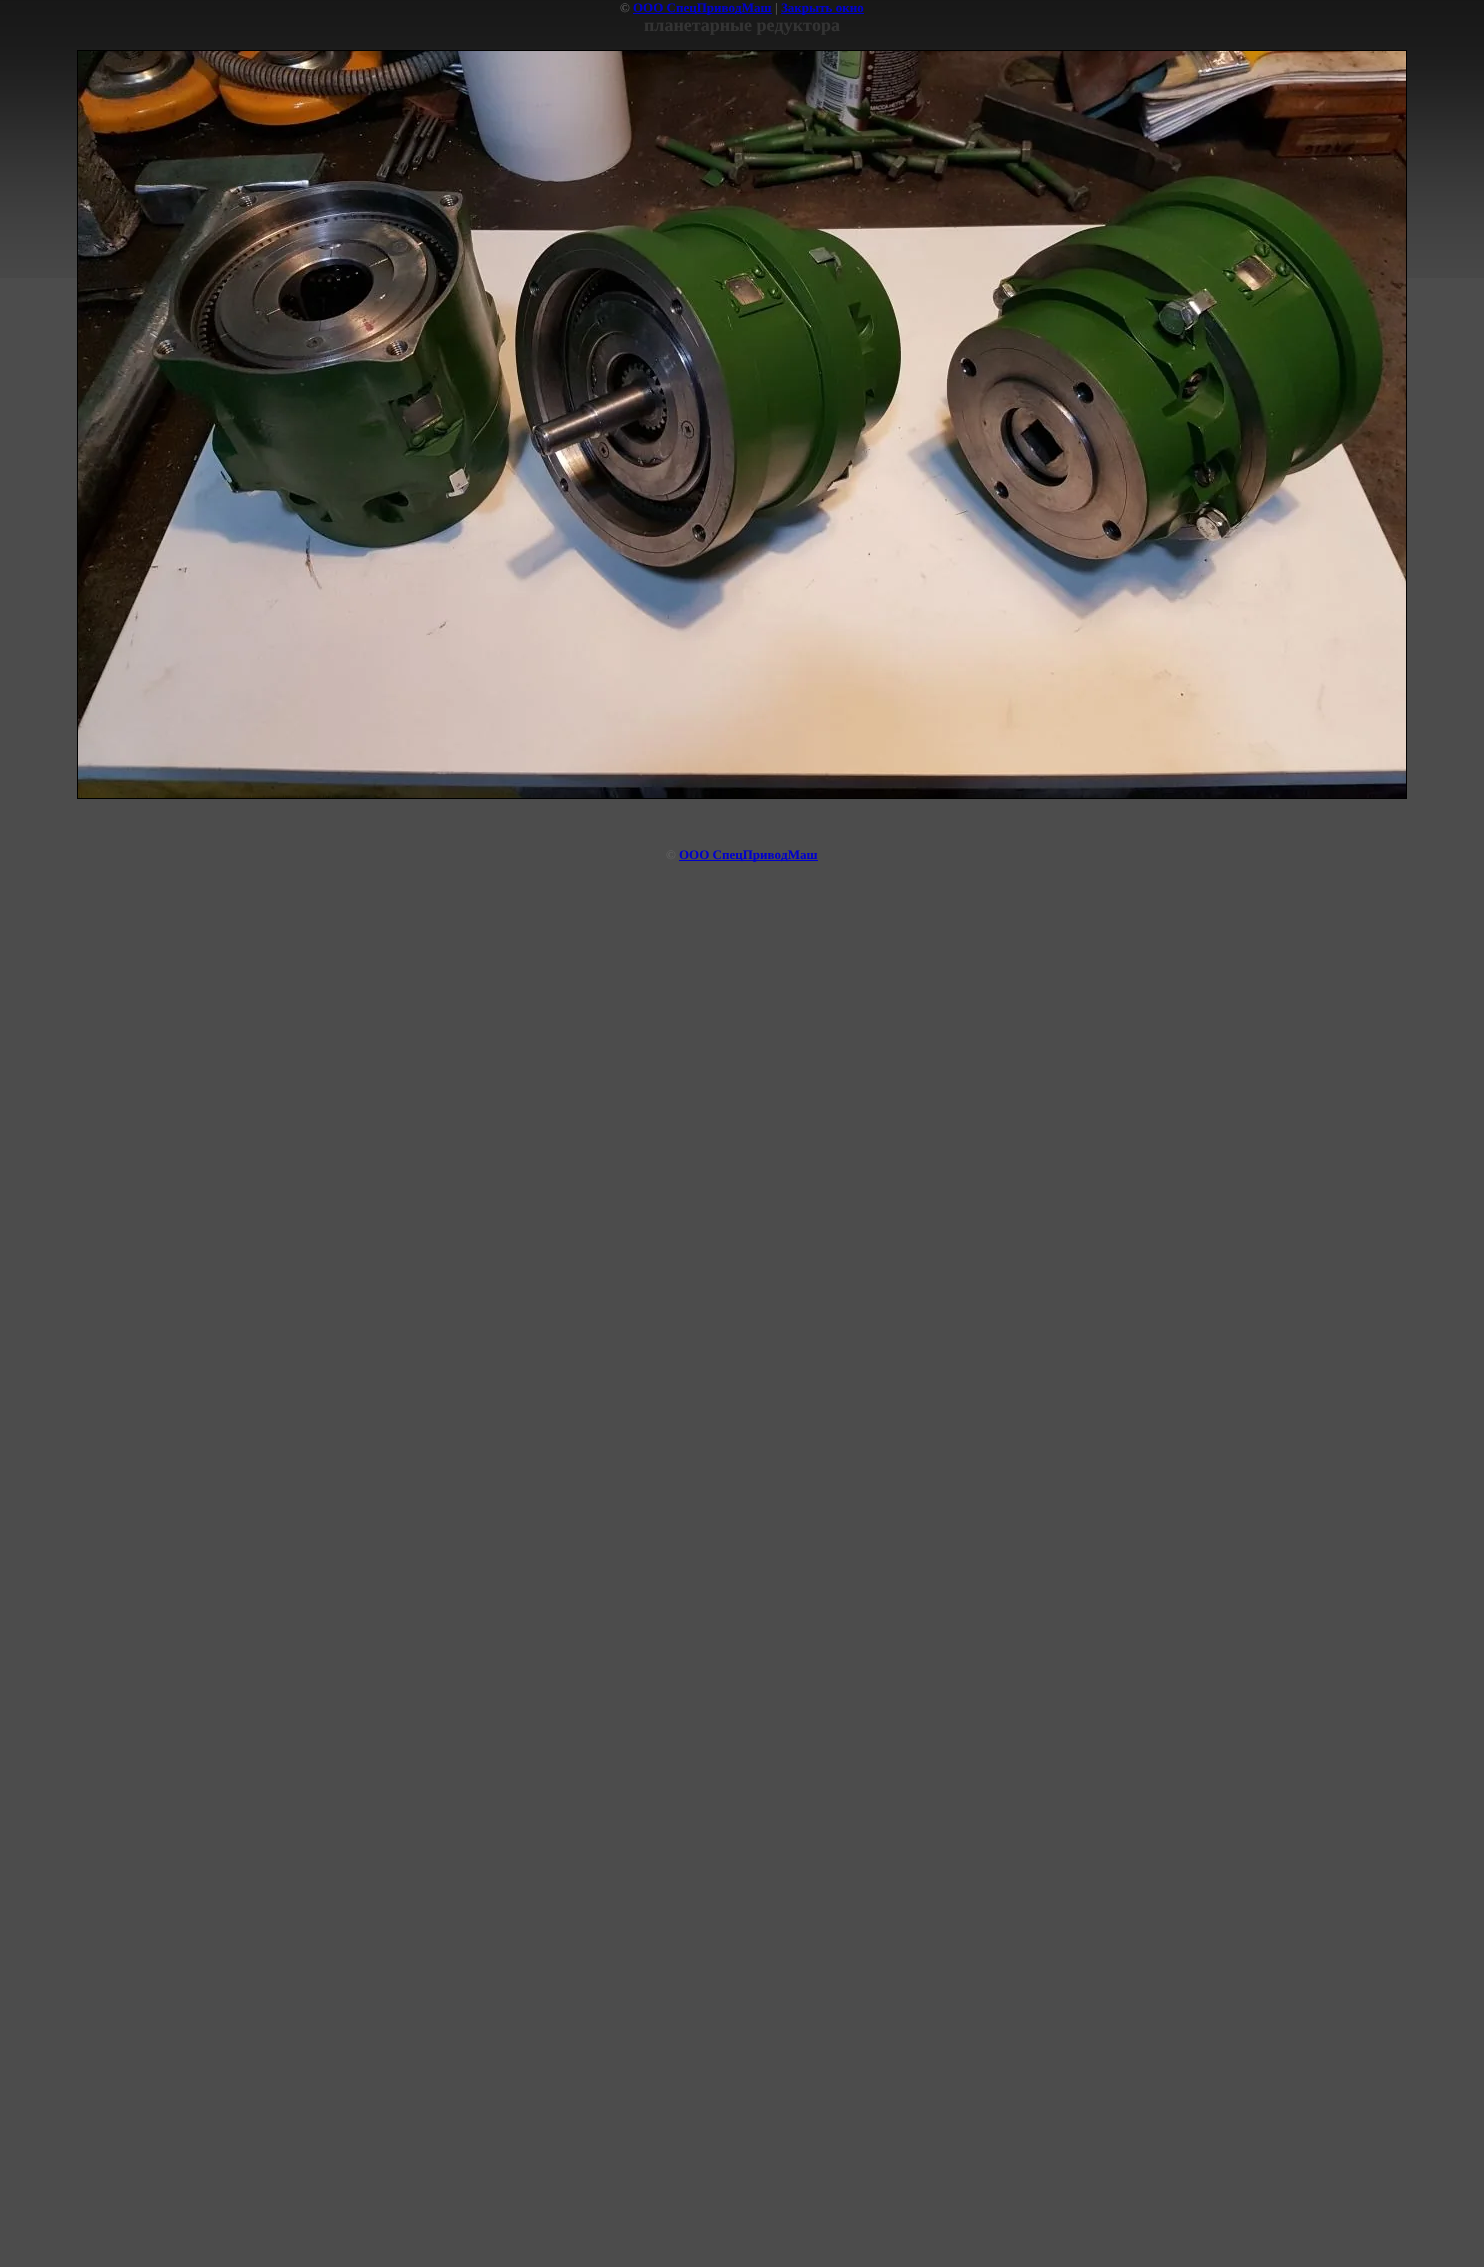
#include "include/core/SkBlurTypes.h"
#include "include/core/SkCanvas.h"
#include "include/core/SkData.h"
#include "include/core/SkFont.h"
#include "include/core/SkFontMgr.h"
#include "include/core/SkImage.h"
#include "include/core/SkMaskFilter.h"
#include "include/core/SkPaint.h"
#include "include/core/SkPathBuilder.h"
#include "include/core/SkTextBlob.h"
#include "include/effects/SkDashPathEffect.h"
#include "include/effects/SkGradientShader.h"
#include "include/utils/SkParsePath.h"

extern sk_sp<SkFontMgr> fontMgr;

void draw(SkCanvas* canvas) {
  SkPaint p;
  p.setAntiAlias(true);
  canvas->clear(SkColorSetRGB(76, 76, 76));
  canvas->drawImageRect(SkImages::DeferredFromEncodedData(SkData::MakeFromFileName("images/1.png")), SkRect::MakeLTRB(0, 0, 1484, 278), SkSamplingOptions());
  p.setColor(SkColorSetRGB(0, 0, 204));
  canvas->drawRect(SkRect::MakeLTRB(633, 13, 772, 14), p);
  canvas->drawRect(SkRect::MakeLTRB(781, 13, 864, 14), p);
  p.setStyle(SkPaint::kStroke_Style);
  p.setStrokeWidth(1);
  p.setColor(SK_ColorBLACK);
  canvas->drawRect(SkRect::MakeLTRB(77.5f, 50.5f, 1406.5f, 798.5f), p);
  canvas->drawImageRect(SkImages::DeferredFromEncodedData(SkData::MakeFromFileName("images/2.png")), SkRect::MakeLTRB(78, 51, 1406, 798), SkSamplingOptions());
  p.setStyle(SkPaint::kFill_Style);
  p.setColor(SkColorSetRGB(0, 0, 204));
  canvas->drawRect(SkRect::MakeLTRB(679, 860, 818, 861), p);
  SkFont font1(fontMgr->matchFamilyStyle("Liberation Serif", SkFontStyle::Normal()), 13);
  font1.setSubpixel(true);
  p.setColor(SkColorSetRGB(98, 98, 98));
  canvas->drawString("©", 620, 12, font1, p);
  SkFont font2(fontMgr->matchFamilyStyle("Liberation Serif", SkFontStyle::Bold()), 13);
  font2.setSubpixel(true);
  p.setColor(SkColorSetRGB(0, 0, 204));
  canvas->drawString("ООО СпецПриводМаш", 633, 12, font2, p);
  p.setColor(SkColorSetRGB(98, 98, 98));
  canvas->drawString("|", 775, 12, font1, p);
  p.setColor(SkColorSetRGB(0, 0, 204));
  canvas->drawString("Закрыть окно", 781, 12, font2, p);
  SkFont font3(fontMgr->matchFamilyStyle("Liberation Serif", SkFontStyle::Bold()), 18);
  font3.setSubpixel(true);
  p.setColor(SkColorSetRGB(51, 51, 51));
  canvas->drawString("планетарные редуктора", 644, 31, font3, p);
  p.setColor(SkColorSetRGB(98, 98, 98));
  canvas->drawString("©", 666, 859, font1, p);
  p.setColor(SkColorSetRGB(0, 0, 204));
  canvas->drawString("ООО СпецПриводМаш", 679, 859, font2, p);
}
